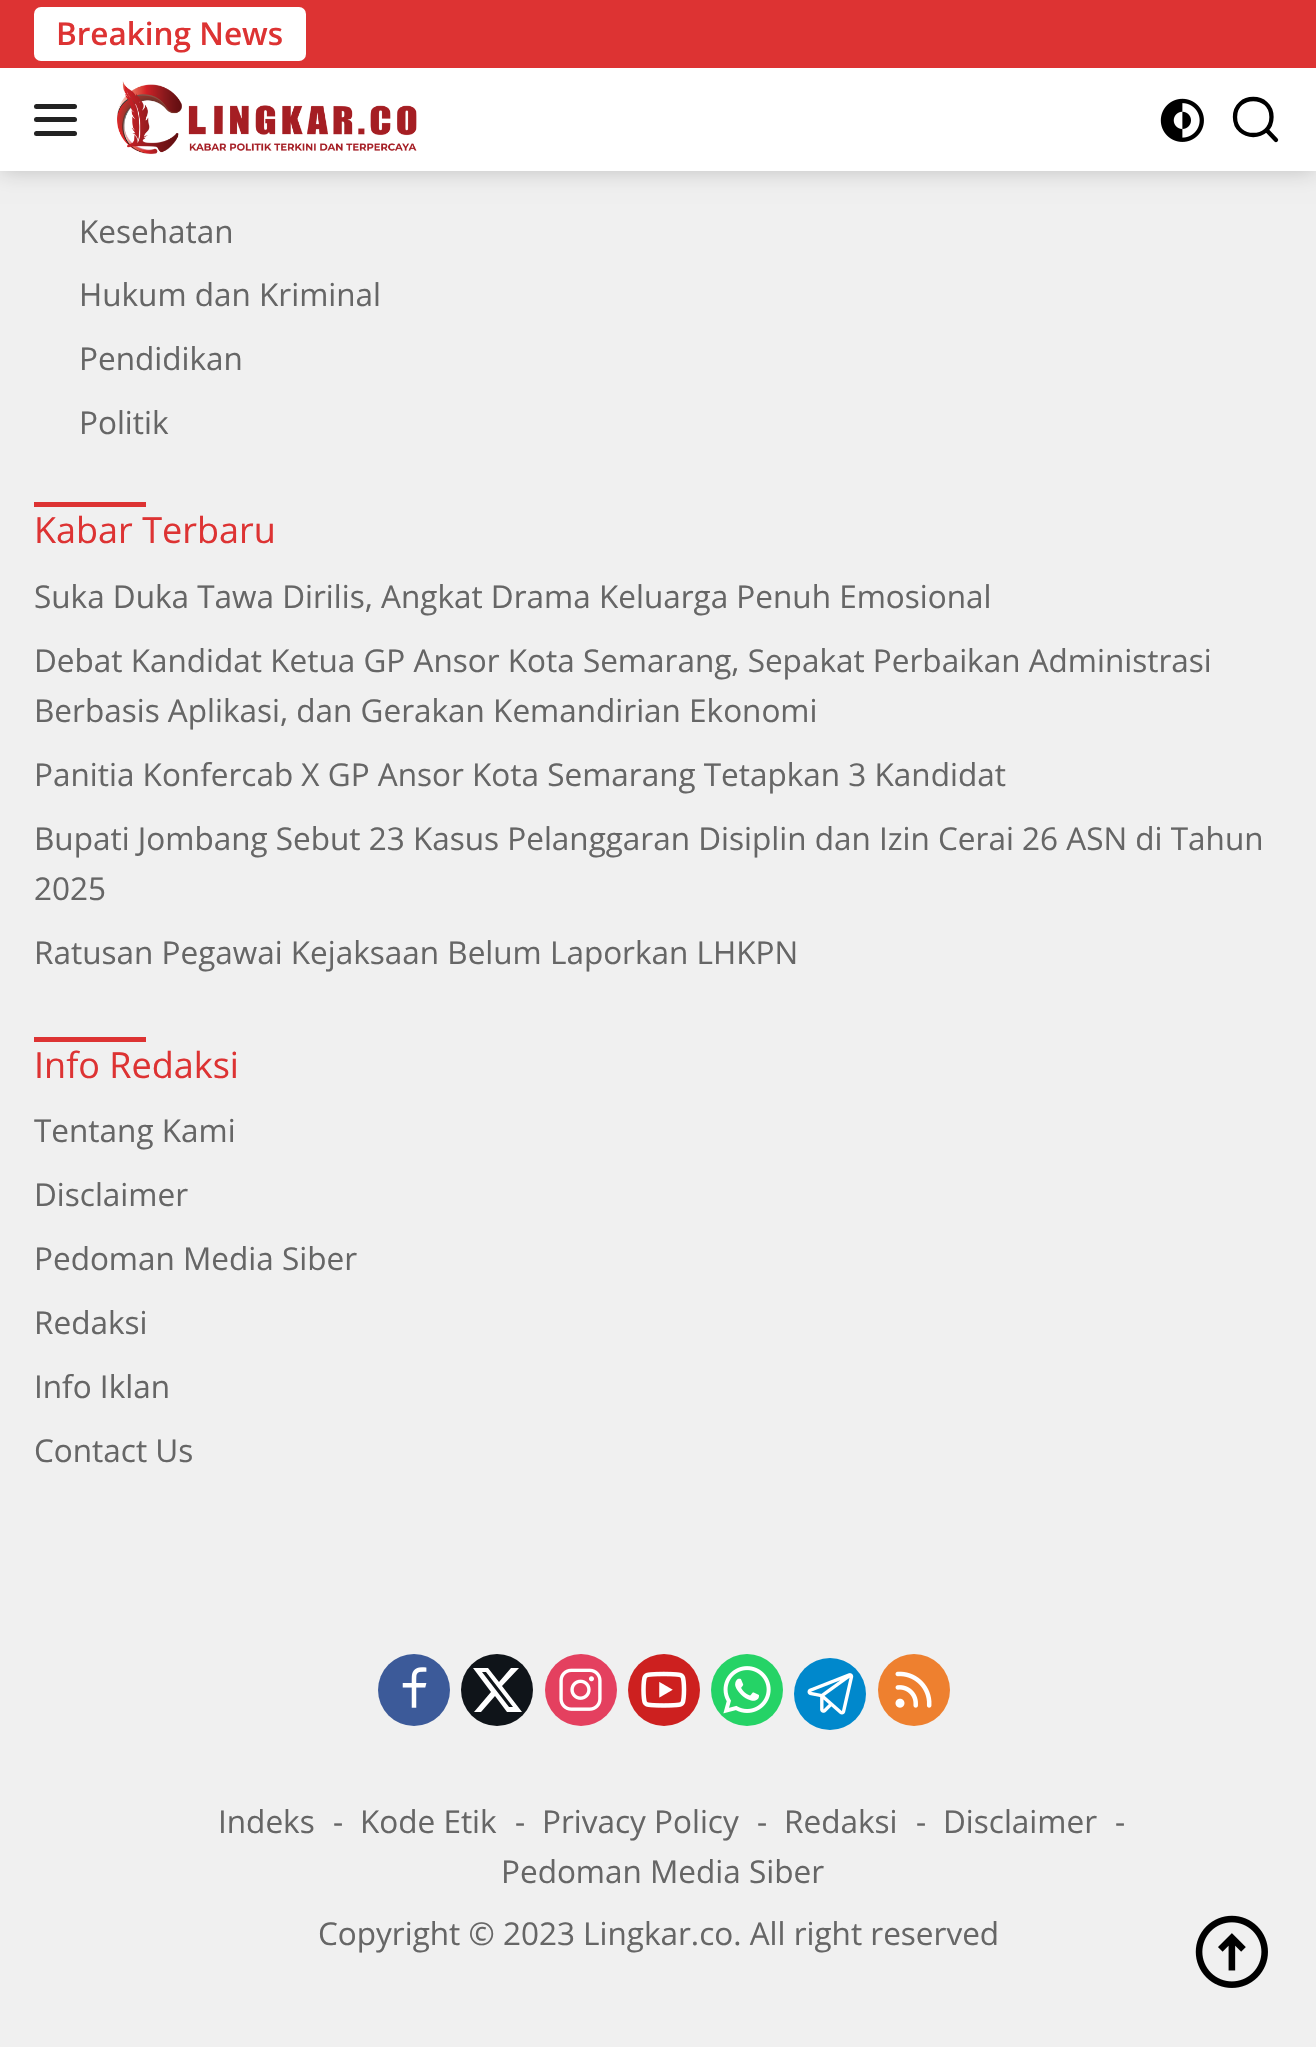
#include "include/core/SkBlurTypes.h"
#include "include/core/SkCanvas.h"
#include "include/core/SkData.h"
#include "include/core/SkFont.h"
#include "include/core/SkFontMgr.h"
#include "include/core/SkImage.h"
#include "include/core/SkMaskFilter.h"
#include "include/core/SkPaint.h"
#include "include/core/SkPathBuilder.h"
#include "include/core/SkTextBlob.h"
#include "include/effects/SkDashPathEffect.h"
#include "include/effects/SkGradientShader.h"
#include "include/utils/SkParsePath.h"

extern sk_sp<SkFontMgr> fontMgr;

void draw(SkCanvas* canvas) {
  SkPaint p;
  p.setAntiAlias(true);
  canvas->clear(SkColorSetRGB(240, 240, 240));
  p.setColor(SkColorSetARGB(51, 0, 0, 0));
  p.setMaskFilter(SkMaskFilter::MakeBlur(kNormal_SkBlurStyle, 11));
  canvas->drawRect(SkRect::MakeLTRB(0, 0, 1316, 171), p);
  p.setMaskFilter(nullptr);
  p.setColor(SK_ColorWHITE);
  canvas->drawRect(SkRect::MakeLTRB(0, 68, 1316, 171), p);
  p.setColor(SkColorSetRGB(221, 51, 51));
  canvas->drawRect(SkRect::MakeLTRB(0, 0, 1316, 68), p);
  p.setColor(SK_ColorWHITE);
  canvas->drawRoundRect(SkRect::MakeLTRB(34, 7, 306, 61), 7, 7, p);
  p.setColor(SkColorSetRGB(34, 34, 34));
  canvas->drawRoundRect(SkRect::MakeLTRB(34, 104, 77, 109), 2.5f, 2.5f, p);
  canvas->drawRoundRect(SkRect::MakeLTRB(34, 117, 77, 122), 2.5f, 2.5f, p);
  canvas->drawRoundRect(SkRect::MakeLTRB(34, 131, 77, 136), 2.5f, 2.5f, p);
  canvas->drawImageRect(SkImages::DeferredFromEncodedData(SkData::MakeFromFileName("images/1.png")), SkRect::MakeLTRB(117, 81, 417, 155), SkSamplingOptions());
  canvas->drawImageRect(SkImages::DeferredFromEncodedData(SkData::MakeFromFileName("images/2.png")), SkRect::MakeLTRB(1160, 98, 1204, 142), SkSamplingOptions());
  p.setStyle(SkPaint::kStroke_Style);
  p.setStrokeWidth(4.3f);
  p.setStrokeCap(SkPaint::kRound_Cap);
  p.setColor(SK_ColorBLACK);
  canvas->drawPath(SkPathBuilder().moveTo(1276, 140).lineTo(1266.5f, 130).moveTo(1271.5f, 117).cubicTo(1271.5f, 141, 1235, 141, 1235, 117).cubicTo(1235, 93, 1271.5f, 93, 1271.5f, 117).close().detach(), p);
  p.setStyle(SkPaint::kFill_Style);
  p.setColor(SkColorSetRGB(221, 51, 51));
  canvas->drawRect(SkRect::MakeLTRB(34, 502, 146, 507), p);
  canvas->drawRect(SkRect::MakeLTRB(34, 1037, 146, 1042), p);
  p.setColor(SkColorSetRGB(60, 90, 153));
  canvas->drawCircle(414, 1690, 36, p);
  canvas->drawImageRect(SkImages::DeferredFromEncodedData(SkData::MakeFromFileName("images/3.png")), SkRect::MakeLTRB(402, 1667, 427, 1708), SkSamplingOptions());
  p.setColor(SkColorSetRGB(15, 20, 25));
  canvas->drawCircle(497, 1690, 36, p);
  p.setColor(SK_ColorWHITE);
  canvas->drawPath(SkPathBuilder().moveTo(511, 1668).lineTo(519, 1668).lineTo(502, 1686).lineTo(522, 1712).lineTo(507, 1712).lineTo(495, 1696).lineTo(481, 1712).lineTo(474, 1712).lineTo(491, 1692).lineTo(473, 1668).lineTo(488, 1668).lineTo(499, 1682).close().moveTo(509, 1707).lineTo(513, 1707).lineTo(486, 1672).lineTo(482, 1672).close().detach(), p);
  p.setColor(SkColorSetRGB(228, 64, 95));
  canvas->drawCircle(581, 1690, 36, p);
  canvas->drawImageRect(SkImages::DeferredFromEncodedData(SkData::MakeFromFileName("images/4.png")), SkRect::MakeLTRB(559, 1668, 602, 1711), SkSamplingOptions());
  p.setColor(SkColorSetRGB(205, 32, 31));
  canvas->drawCircle(664, 1690, 36, p);
  canvas->drawImageRect(SkImages::DeferredFromEncodedData(SkData::MakeFromFileName("images/5.png")), SkRect::MakeLTRB(641, 1671, 687, 1708), SkSamplingOptions());
  p.setColor(SkColorSetRGB(37, 211, 102));
  canvas->drawCircle(747, 1690, 36, p);
  canvas->drawImageRect(SkImages::DeferredFromEncodedData(SkData::MakeFromFileName("images/6.png")), SkRect::MakeLTRB(723, 1666, 771, 1714), SkSamplingOptions());
  p.setColor(SkColorSetRGB(0, 136, 204));
  canvas->drawCircle(830, 1694, 36, p);
  canvas->drawImageRect(SkImages::DeferredFromEncodedData(SkData::MakeFromFileName("images/7.png")), SkRect::MakeLTRB(807, 1673, 854, 1715), SkSamplingOptions());
  p.setColor(SkColorSetRGB(238, 128, 47));
  canvas->drawCircle(914, 1690, 36, p);
  canvas->drawImageRect(SkImages::DeferredFromEncodedData(SkData::MakeFromFileName("images/8.png")), SkRect::MakeLTRB(895, 1671, 932, 1708), SkSamplingOptions());
  canvas->drawImageRect(SkImages::DeferredFromEncodedData(SkData::MakeFromFileName("images/9.png")), SkRect::MakeLTRB(1195, 1915, 1268, 1988), SkSamplingOptions());
  SkFont font1(fontMgr->matchFamilyStyle("Open Sans", SkFontStyle(600, SkFontStyle::kNormal_Width, SkFontStyle::kUpright_Slant)), 31.5f);
  font1.setSubpixel(true);
  p.setColor(SkColorSetRGB(221, 51, 51));
  canvas->drawString("Breaking News", 56, 45, font1, p);
  SkFont font2(fontMgr->matchFamilyStyle("Open Sans", SkFontStyle::Normal()), 31.5f);
  font2.setSubpixel(true);
  p.setColor(SkColorSetRGB(102, 102, 102));
  canvas->drawString("Kesehatan", 79, 243, font2, p);
  canvas->drawString("Hukum dan Kriminal", 79, 306, font2, p);
  canvas->drawString("Pendidikan", 79, 370, font2, p);
  canvas->drawString("Politik", 79, 434, font2, p);
  SkFont font3(fontMgr->matchFamilyStyle("Open Sans", SkFontStyle::Normal()), 36);
  font3.setSubpixel(true);
  p.setColor(SkColorSetRGB(221, 51, 51));
  canvas->drawString("Kabar Terbaru", 34, 543, font3, p);
  p.setColor(SkColorSetRGB(102, 102, 102));
  canvas->drawString("Suka Duka Tawa Dirilis, Angkat Drama Keluarga Penuh Emosional", 34, 608, font2, p);
  canvas->drawString("Debat Kandidat Ketua GP Ansor Kota Semarang, Sepakat Perbaikan Administrasi", 34, 672, font2, p);
  canvas->drawString("Berbasis Aplikasi, dan Gerakan Kemandirian Ekonomi", 34, 722, font2, p);
  canvas->drawString("Panitia Konfercab X GP Ansor Kota Semarang Tetapkan 3 Kandidat", 34, 786, font2, p);
  canvas->drawString("Bupati Jombang Sebut 23 Kasus Pelanggaran Disiplin dan Izin Cerai 26 ASN di Tahun", 34, 850, font2, p);
  canvas->drawString("2025", 34, 900, font2, p);
  canvas->drawString("Ratusan Pegawai Kejaksaan Belum Laporkan LHKPN", 34, 964, font2, p);
  p.setColor(SkColorSetRGB(221, 51, 51));
  canvas->drawString("Info Redaksi", 34, 1078, font3, p);
  p.setColor(SkColorSetRGB(102, 102, 102));
  canvas->drawString("Tentang Kami", 34, 1142, font2, p);
  canvas->drawString("Disclaimer", 34, 1206, font2, p);
  canvas->drawString("Pedoman Media Siber", 34, 1270, font2, p);
  canvas->drawString("Redaksi", 34, 1334, font2, p);
  canvas->drawString("Info Iklan", 34, 1398, font2, p);
  canvas->drawString("Contact Us", 34, 1462, font2, p);
  canvas->drawString("Indeks", 218, 1833, font2, p);
  canvas->drawString("-", 333, 1833, font2, p);
  canvas->drawString("Kode Etik", 360, 1833, font2, p);
  canvas->drawString("-", 515, 1833, font2, p);
  canvas->drawString("Privacy Policy", 542, 1833, font2, p);
  canvas->drawString("-", 757, 1833, font2, p);
  canvas->drawString("Redaksi", 784, 1833, font2, p);
  canvas->drawString("-", 916, 1833, font2, p);
  canvas->drawString("Disclaimer", 943, 1833, font2, p);
  canvas->drawString("-", 1115, 1833, font2, p);
  canvas->drawString("Pedoman Media Siber", 501, 1883, font2, p);
  canvas->drawString("Copyright © 2023 Lingkar.co. All right reserved", 318, 1945, font2, p);
}
